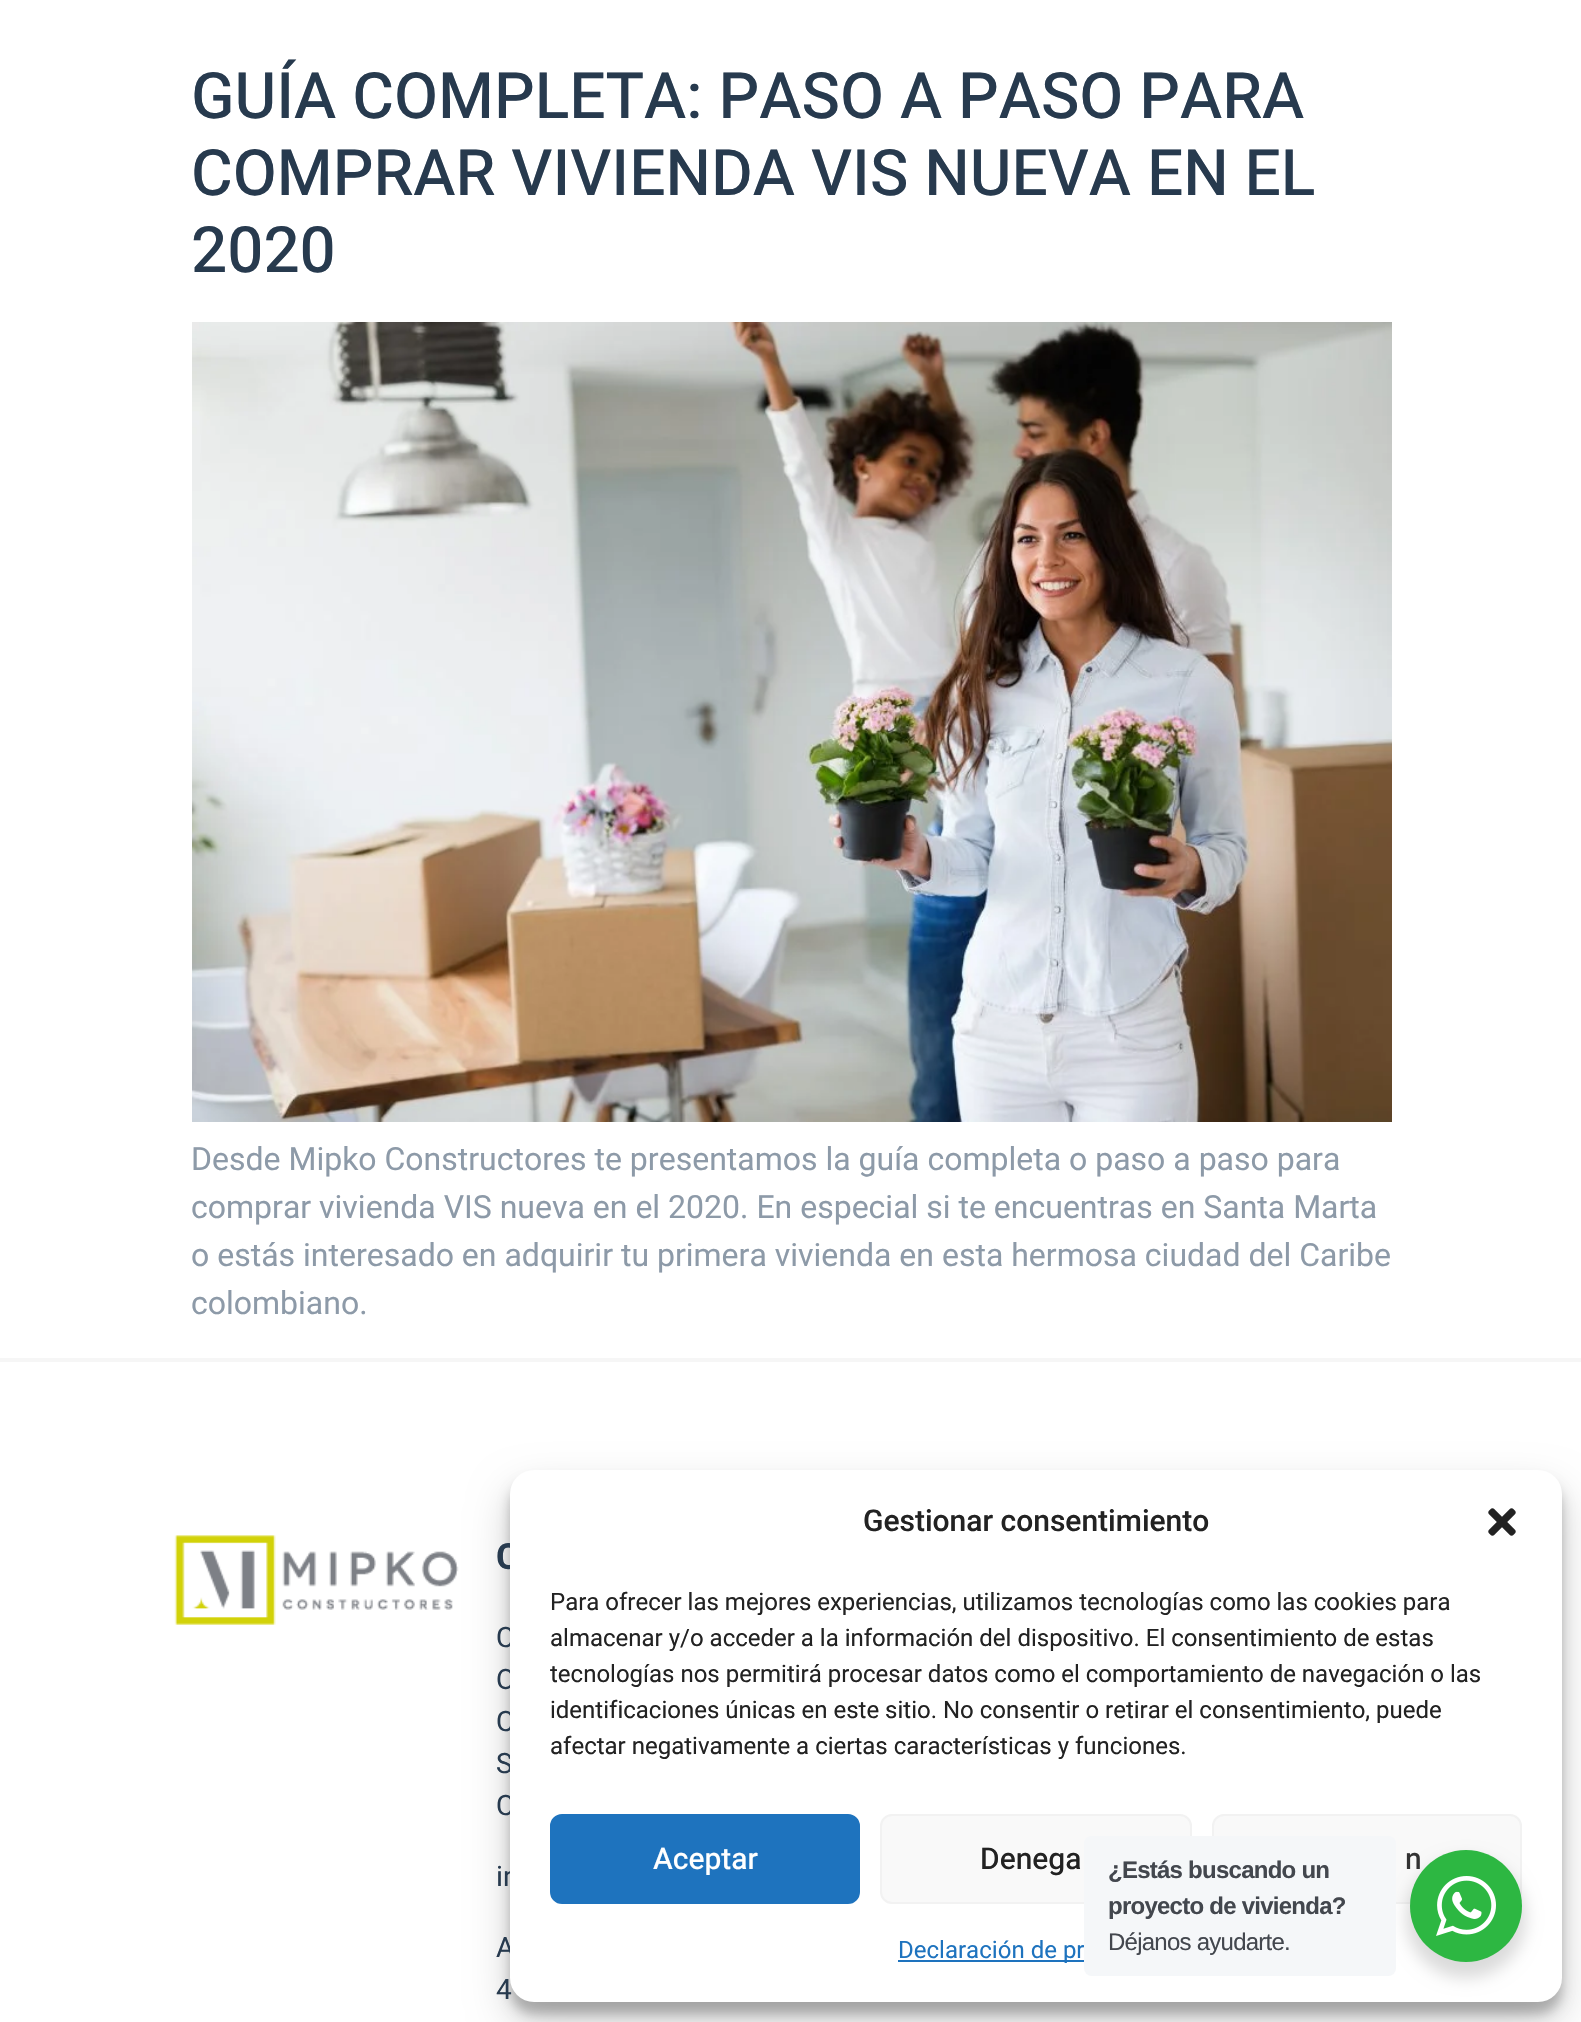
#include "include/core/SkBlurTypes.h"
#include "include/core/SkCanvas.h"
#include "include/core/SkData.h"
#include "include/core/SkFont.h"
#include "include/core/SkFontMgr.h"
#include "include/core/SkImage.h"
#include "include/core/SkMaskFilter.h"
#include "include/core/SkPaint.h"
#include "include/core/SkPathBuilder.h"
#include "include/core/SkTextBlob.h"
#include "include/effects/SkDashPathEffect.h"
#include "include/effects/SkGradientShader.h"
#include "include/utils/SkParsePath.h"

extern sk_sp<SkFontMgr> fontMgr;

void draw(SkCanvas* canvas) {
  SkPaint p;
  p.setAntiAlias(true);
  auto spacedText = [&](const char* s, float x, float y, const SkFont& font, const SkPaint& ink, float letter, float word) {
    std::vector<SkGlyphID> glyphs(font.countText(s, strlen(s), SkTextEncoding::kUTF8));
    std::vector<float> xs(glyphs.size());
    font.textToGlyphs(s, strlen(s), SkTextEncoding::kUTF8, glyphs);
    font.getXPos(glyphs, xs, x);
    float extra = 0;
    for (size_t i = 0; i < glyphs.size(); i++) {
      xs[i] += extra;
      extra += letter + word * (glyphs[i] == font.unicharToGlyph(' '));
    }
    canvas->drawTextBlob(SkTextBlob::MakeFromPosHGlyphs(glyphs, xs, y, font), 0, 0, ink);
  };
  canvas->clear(SK_ColorWHITE);
  canvas->drawImageRect(SkImages::DeferredFromEncodedData(SkData::MakeFromFileName("images/1.png")), SkRect::MakeLTRB(192, 322, 1392, 1122), SkSamplingOptions());
  p.setColor(SkColorSetRGB(246, 246, 246));
  canvas->drawRect(SkRect::MakeLTRB(0, 1358, 1581, 1362), p);
  canvas->drawImageRect(SkImages::DeferredFromEncodedData(SkData::MakeFromFileName("images/2.png")), SkRect::MakeLTRB(174, 1535, 459, 1625), SkSamplingOptions());
  p.setColor(SkColorSetARGB(59, 0, 0, 0));
  p.setMaskFilter(SkMaskFilter::MakeBlur(kNormal_SkBlurStyle, 6));
  canvas->drawRoundRect(SkRect::MakeLTRB(510, 1482, 1562, 2014), 24, 24, p);
  p.setMaskFilter(nullptr);
  p.setColor(SkColorSetARGB(48, 0, 0, 0));
  p.setMaskFilter(SkMaskFilter::MakeBlur(kNormal_SkBlurStyle, 20));
  canvas->drawRoundRect(SkRect::MakeLTRB(510, 1490, 1562, 2022), 24, 24, p);
  p.setMaskFilter(nullptr);
  SkFont font1(fontMgr->matchFamilyStyle("Heebo", SkFontStyle(500, SkFontStyle::kNormal_Width, SkFontStyle::kUpright_Slant)), 64);
  font1.setSubpixel(true);
  p.setColor(SkColorSetRGB(39, 58, 78));
  canvas->drawString("GUÍA COMPLETA: PASO A PASO PARA", 191, 118, font1, p);
  canvas->drawString("COMPRAR VIVIENDA VIS NUEVA EN EL", 191, 195, font1, p);
  canvas->drawString("2020", 191, 272, font1, p);
  SkFont font2(fontMgr->matchFamilyStyle("Roboto", SkFontStyle::Normal()), 32);
  font2.setSubpixel(true);
  p.setColor(SkColorSetRGB(141, 154, 168));
  canvas->drawString("Desde Mipko Constructores te presentamos la guía completa o paso a paso para", 191, 1170, font2, p);
  canvas->drawString("comprar vivienda VIS nueva en el 2020. En especial si te encuentras en Santa Marta", 191, 1218, font2, p);
  canvas->drawString("o estás interesado en adquirir tu primera vivienda en esta hermosa ciudad del Caribe", 191, 1266, font2, p);
  canvas->drawString("colombiano.", 191, 1314, font2, p);
  SkFont font3(fontMgr->matchFamilyStyle("Heebo", SkFontStyle::Bold()), 36);
  font3.setSubpixel(true);
  p.setColor(SkColorSetRGB(39, 58, 78));
  canvas->drawString("C", 496, 1569, font3, p);
  SkFont font4(fontMgr->matchFamilyStyle("Roboto", SkFontStyle::Normal()), 28);
  font4.setSubpixel(true);
  canvas->drawString("C", 496, 1647, font4, p);
  canvas->drawString("O", 496, 1689, font4, p);
  canvas->drawString("C", 496, 1731, font4, p);
  canvas->drawString("S", 496, 1773, font4, p);
  canvas->drawString("C", 496, 1815, font4, p);
  SkFont font5(fontMgr->matchFamilyStyle("Heebo", SkFontStyle::Normal()), 28);
  font5.setSubpixel(true);
  canvas->drawString("in", 496, 1886, font5, p);
  canvas->drawString("A", 496, 1957, font4, p);
  canvas->drawString("4", 496, 1999, font5, p);
  p.setColor(SK_ColorWHITE);
  canvas->drawRoundRect(SkRect::MakeLTRB(510, 1470, 1562, 2002), 24, 24, p);
  SkFont font6(fontMgr->matchFamilyStyle("Roboto", SkFontStyle(500, SkFontStyle::kNormal_Width, SkFontStyle::kUpright_Slant)), 30);
  font6.setSubpixel(true);
  p.setColor(SkColorSetRGB(34, 34, 34));
  canvas->drawString("Gestionar consentimiento", 863, 1531, font6, p);
  canvas->drawImageRect(SkImages::DeferredFromEncodedData(SkData::MakeFromFileName("images/3.png")), SkRect::MakeLTRB(1488, 1508, 1516, 1536), SkSamplingOptions());
  SkFont font7(fontMgr->matchFamilyStyle("Roboto", SkFontStyle::Normal()), 24);
  font7.setSubpixel(true);
  canvas->drawString("Para ofrecer las mejores experiencias, utilizamos tecnologías como las cookies para", 550, 1610, font7, p);
  canvas->drawString("almacenar y/o acceder a la información del dispositivo. El consentimiento de estas", 550, 1646, font7, p);
  canvas->drawString("tecnologías nos permitirá procesar datos como el comportamiento de navegación o las", 550, 1682, font7, p);
  canvas->drawString("identificaciones únicas en este sitio. No consentir o retirar el consentimiento, puede", 550, 1718, font7, p);
  canvas->drawString("afectar negativamente a ciertas características y funciones.", 550, 1754, font7, p);
  p.setColor(SkColorSetRGB(30, 115, 190));
  canvas->drawRoundRect(SkRect::MakeLTRB(551, 1815, 859, 1903), 11, 11, p);
  p.setStyle(SkPaint::kStroke_Style);
  p.setStrokeWidth(2);
  canvas->drawRoundRect(SkRect::MakeLTRB(551, 1815, 859, 1903), 11, 11, p);
  SkFont font8(fontMgr->matchFamilyStyle("Heebo", SkFontStyle(500, SkFontStyle::kNormal_Width, SkFontStyle::kUpright_Slant)), 30);
  font8.setSubpixel(true);
  p.setStyle(SkPaint::kFill_Style);
  p.setColor(SK_ColorWHITE);
  canvas->drawString("Aceptar", 653, 1869, font8, p);
  p.setColor(SkColorSetRGB(249, 249, 249));
  canvas->drawRoundRect(SkRect::MakeLTRB(881, 1815, 1191, 1903), 11, 11, p);
  p.setStyle(SkPaint::kStroke_Style);
  p.setColor(SkColorSetRGB(242, 242, 242));
  canvas->drawRoundRect(SkRect::MakeLTRB(881, 1815, 1191, 1903), 11, 11, p);
  p.setStyle(SkPaint::kFill_Style);
  p.setColor(SkColorSetRGB(34, 34, 34));
  canvas->drawString("Denega", 980, 1869, font8, p);
  p.setColor(SkColorSetRGB(249, 249, 249));
  canvas->drawRoundRect(SkRect::MakeLTRB(1213, 1815, 1521, 1903), 11, 11, p);
  p.setStyle(SkPaint::kStroke_Style);
  p.setColor(SkColorSetRGB(242, 242, 242));
  canvas->drawRoundRect(SkRect::MakeLTRB(1213, 1815, 1521, 1903), 11, 11, p);
  p.setStyle(SkPaint::kFill_Style);
  p.setColor(SkColorSetRGB(51, 51, 51));
  canvas->drawString("n", 1405, 1869, font8, p);
  p.setColor(SkColorSetRGB(30, 115, 190));
  canvas->drawRect(SkRect::MakeLTRB(898, 1960, 1084, 1962), p);
  SkFont font9(fontMgr->matchFamilyStyle("Heebo", SkFontStyle::Normal()), 24);
  font9.setSubpixel(true);
  canvas->drawString("Declaración de pr", 898, 1958, font9, p);
  p.setColor(SkColorSetARGB(36, 0, 0, 0));
  p.setMaskFilter(SkMaskFilter::MakeBlur(kNormal_SkBlurStyle, 8));
  canvas->drawRoundRect(SkRect::MakeLTRB(1406, 1858, 1526, 1978), 60, 60, p);
  p.setMaskFilter(nullptr);
  p.setColor(SkColorSetRGB(245, 247, 249));
  canvas->drawRoundRect(SkRect::MakeLTRB(1084, 1836, 1396, 1976), 8, 8, p);
  SkFont font10(fontMgr->matchFamilyStyle("Liberation Sans", SkFontStyle::Normal()), 24);
  font10.setSubpixel(true);
  p.setColor(SkColorSetRGB(67, 71, 78));
  spacedText("Déjanos ayudarte.", 1108, 1950, font10, p, -0.75f, 0);
  SkFont font11(fontMgr->matchFamilyStyle("Liberation Sans", SkFontStyle::Bold()), 24);
  font11.setSubpixel(true);
  spacedText("proyecto de vivienda?", 1108, 1914, font11, p, -0.75f, 0);
  spacedText("¿Estás buscando un", 1108, 1878, font11, p, -0.75f, 0);
  p.setColor(SkColorSetRGB(45, 183, 66));
  canvas->drawCircle(1466, 1906, 56, p);
  canvas->drawImageRect(SkImages::DeferredFromEncodedData(SkData::MakeFromFileName("images/4.png")), SkRect::MakeLTRB(1436, 1876, 1496, 1936), SkSamplingOptions());
}
